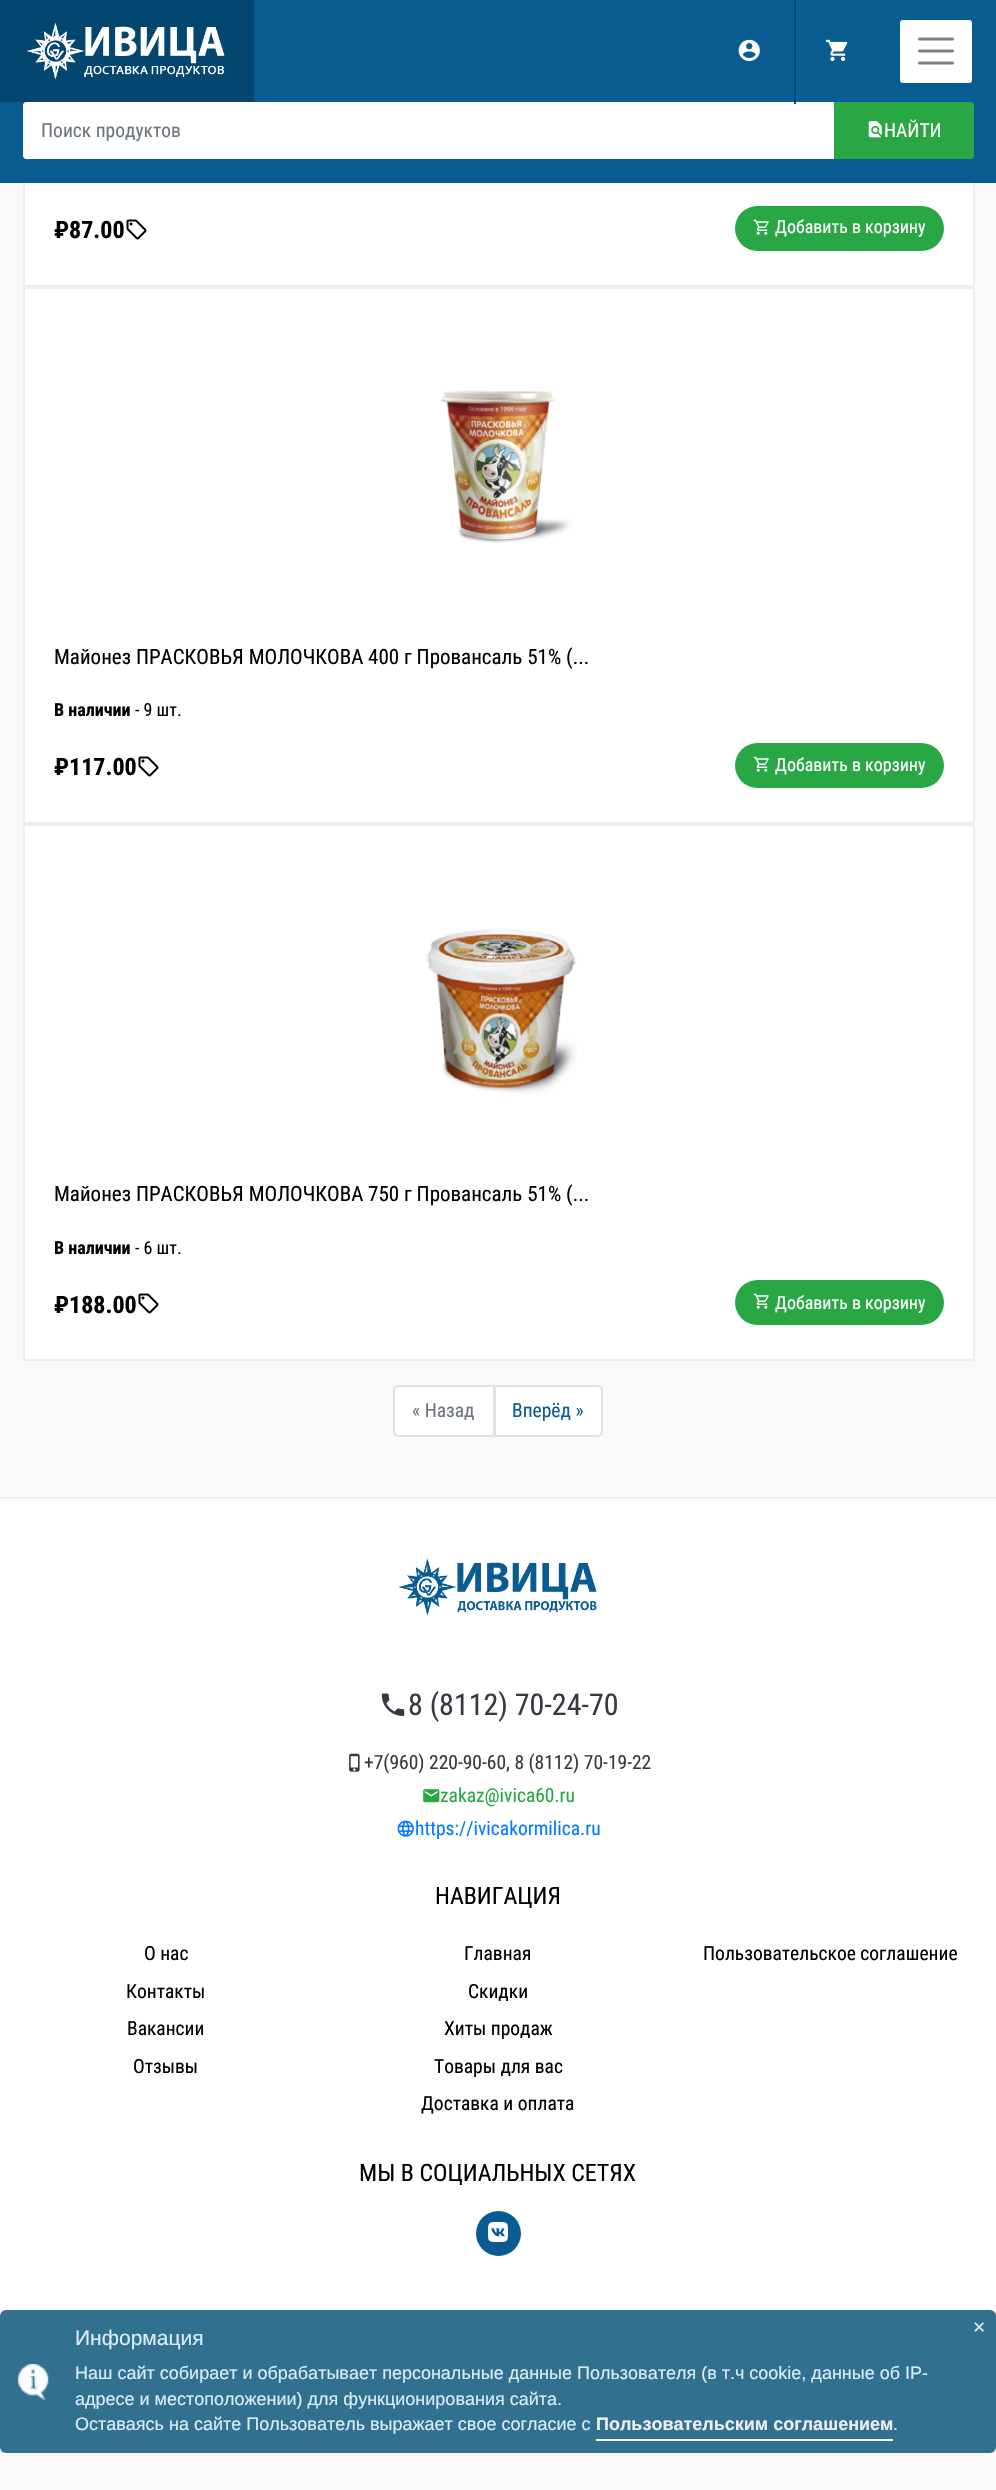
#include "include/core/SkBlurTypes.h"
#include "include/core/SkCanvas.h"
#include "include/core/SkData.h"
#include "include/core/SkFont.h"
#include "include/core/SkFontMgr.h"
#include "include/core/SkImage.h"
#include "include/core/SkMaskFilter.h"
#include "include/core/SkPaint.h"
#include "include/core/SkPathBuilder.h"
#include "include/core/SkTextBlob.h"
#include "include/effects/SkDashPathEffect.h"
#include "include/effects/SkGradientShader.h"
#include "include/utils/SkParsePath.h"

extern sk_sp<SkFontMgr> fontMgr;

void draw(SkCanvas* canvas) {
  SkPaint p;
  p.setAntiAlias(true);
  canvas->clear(SkColorSetRGB(249, 249, 249));
  p.setColor(SK_ColorWHITE);
  canvas->drawRoundRect(SkRect::MakeLTRB(24, -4, 974, 286), 2, 2, p);
  p.setStyle(SkPaint::kStroke_Style);
  p.setStrokeWidth(2);
  p.setColor(SkColorSetRGB(238, 238, 238));
  canvas->drawRoundRect(SkRect::MakeLTRB(24, -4, 974, 286), 2, 2, p);
  p.setStyle(SkPaint::kFill_Style);
  p.setColor(SkColorSetRGB(9, 92, 145));
  canvas->drawRect(SkRect::MakeLTRB(0, 0, 996, 183), p);
  p.setColor(SkColorSetRGB(3, 70, 112));
  canvas->drawRect(SkRect::MakeLTRB(0, 0, 254, 102), p);
  canvas->drawImageRect(SkImages::DeferredFromEncodedData(SkData::MakeFromFileName("images/1.png")), SkRect::MakeLTRB(27, 23, 225, 79), SkSamplingOptions());
  p.setColor(SK_ColorWHITE);
  canvas->drawRoundRect(SkRect::MakeLTRB(900, 20, 972, 83), 3, 3, p);
  p.setStyle(SkPaint::kStroke_Style);
  p.setStrokeWidth(3);
  p.setStrokeCap(SkPaint::kRound_Cap);
  p.setColor(SkColorSetRGB(128, 128, 128));
  canvas->drawPath(SkPathBuilder().moveTo(919.5f, 39).lineTo(952.5f, 39).moveTo(919.5f, 51).lineTo(952.5f, 51).moveTo(919.5f, 63).lineTo(952.5f, 63).detach(), p);
  p.setStyle(SkPaint::kFill_Style);
  p.setColor(SK_ColorWHITE);
  canvas->drawPath(SkPathBuilder().moveTo(26, 102).lineTo(834, 102).lineTo(834, 159).lineTo(26, 159).cubicTo(24.5f, 159, 23, 157.5f, 23, 156).lineTo(23, 105).cubicTo(23, 103.5f, 24.5f, 102, 26, 102).close().detach(), p);
  p.setColor(SkColorSetRGB(3, 70, 112));
  canvas->drawRect(SkRect::MakeLTRB(794, 0, 796, 104), p);
  canvas->drawImageRect(SkImages::DeferredFromEncodedData(SkData::MakeFromFileName("images/2.png")), SkRect::MakeLTRB(738, 39, 760, 61), SkSamplingOptions());
  canvas->drawImageRect(SkImages::DeferredFromEncodedData(SkData::MakeFromFileName("images/3.png")), SkRect::MakeLTRB(826, 39, 848, 61), SkSamplingOptions());
  p.setColor(SkColorSetRGB(41, 167, 69));
  canvas->drawPath(SkPathBuilder().moveTo(834, 102).lineTo(971, 102).cubicTo(972.5f, 102, 974, 103.5f, 974, 105).lineTo(974, 156).cubicTo(974, 157.5f, 972.5f, 159, 971, 159).lineTo(834, 159).close().detach(), p);
  canvas->drawImageRect(SkImages::DeferredFromEncodedData(SkData::MakeFromFileName("images/4.png")), SkRect::MakeLTRB(868, 121, 882, 138), SkSamplingOptions());
  canvas->drawImageRect(SkImages::DeferredFromEncodedData(SkData::MakeFromFileName("images/5.png")), SkRect::MakeLTRB(126, 219, 147, 240), SkSamplingOptions());
  canvas->drawRoundRect(SkRect::MakeLTRB(735, 206, 944, 251), 22.5f, 22.5f, p);
  canvas->drawImageRect(SkImages::DeferredFromEncodedData(SkData::MakeFromFileName("images/6.png")), SkRect::MakeLTRB(753, 219, 769, 235), SkSamplingOptions());
  p.setColor(SK_ColorWHITE);
  canvas->drawRoundRect(SkRect::MakeLTRB(24, 288, 974, 823), 2, 2, p);
  p.setStyle(SkPaint::kStroke_Style);
  p.setStrokeWidth(2);
  p.setStrokeCap(SkPaint::kButt_Cap);
  p.setColor(SkColorSetRGB(238, 238, 238));
  canvas->drawRoundRect(SkRect::MakeLTRB(24, 288, 974, 823), 2, 2, p);
  canvas->drawImageRect(SkImages::DeferredFromEncodedData(SkData::MakeFromFileName("images/7.png")), SkRect::MakeLTRB(440, 390, 573, 543), SkSamplingOptions());
  canvas->drawImageRect(SkImages::DeferredFromEncodedData(SkData::MakeFromFileName("images/5.png")), SkRect::MakeLTRB(138, 756, 159, 777), SkSamplingOptions());
  p.setStyle(SkPaint::kFill_Style);
  p.setColor(SkColorSetRGB(41, 167, 69));
  canvas->drawRoundRect(SkRect::MakeLTRB(735, 743, 944, 788), 22.5f, 22.5f, p);
  canvas->drawImageRect(SkImages::DeferredFromEncodedData(SkData::MakeFromFileName("images/6.png")), SkRect::MakeLTRB(753, 756, 769, 772), SkSamplingOptions());
  p.setColor(SK_ColorWHITE);
  canvas->drawRoundRect(SkRect::MakeLTRB(24, 825, 974, 1360), 2, 2, p);
  p.setStyle(SkPaint::kStroke_Style);
  p.setColor(SkColorSetRGB(238, 238, 238));
  canvas->drawRoundRect(SkRect::MakeLTRB(24, 825, 974, 1360), 2, 2, p);
  canvas->drawImageRect(SkImages::DeferredFromEncodedData(SkData::MakeFromFileName("images/8.png")), SkRect::MakeLTRB(426, 929, 577, 1094), SkSamplingOptions());
  canvas->drawImageRect(SkImages::DeferredFromEncodedData(SkData::MakeFromFileName("images/5.png")), SkRect::MakeLTRB(138, 1293, 159, 1314), SkSamplingOptions());
  p.setStyle(SkPaint::kFill_Style);
  p.setColor(SkColorSetRGB(41, 167, 69));
  canvas->drawRoundRect(SkRect::MakeLTRB(735, 1280, 944, 1325), 22.5f, 22.5f, p);
  canvas->drawImageRect(SkImages::DeferredFromEncodedData(SkData::MakeFromFileName("images/6.png")), SkRect::MakeLTRB(753, 1293, 769, 1309), SkSamplingOptions());
  p.setColor(SK_ColorWHITE);
  canvas->drawPath(SkPathBuilder().moveTo(399, 1386).lineTo(494, 1386).lineTo(494, 1436).lineTo(399, 1436).cubicTo(396, 1436, 394, 1434, 394, 1431).lineTo(394, 1391).cubicTo(394, 1388, 396, 1386, 399, 1386).close().detach(), p);
  p.setStyle(SkPaint::kStroke_Style);
  p.setColor(SkColorSetRGB(222, 226, 230));
  canvas->drawPath(SkPathBuilder().moveTo(399, 1386).lineTo(494, 1386).lineTo(494, 1436).lineTo(399, 1436).cubicTo(396, 1436, 394, 1434, 394, 1431).lineTo(394, 1391).cubicTo(394, 1388, 396, 1386, 399, 1386).close().detach(), p);
  p.setStyle(SkPaint::kFill_Style);
  p.setColor(SK_ColorWHITE);
  canvas->drawPath(SkPathBuilder().moveTo(495, 1386).lineTo(597, 1386).cubicTo(600, 1386, 602, 1388, 602, 1391).lineTo(602, 1431).cubicTo(602, 1434, 600, 1436, 597, 1436).lineTo(495, 1436).close().detach(), p);
  p.setStyle(SkPaint::kStroke_Style);
  p.setColor(SkColorSetRGB(222, 226, 230));
  canvas->drawPath(SkPathBuilder().moveTo(495, 1386).lineTo(597, 1386).cubicTo(600, 1386, 602, 1388, 602, 1391).lineTo(602, 1431).cubicTo(602, 1434, 600, 1436, 597, 1436).lineTo(495, 1436).close().detach(), p);
  p.setStyle(SkPaint::kFill_Style);
  p.setColor(SK_ColorWHITE);
  canvas->drawRect(SkRect::MakeLTRB(0, 1499, 996, 2316), p);
  p.setColor(SkColorSetRGB(238, 238, 238));
  canvas->drawRect(SkRect::MakeLTRB(0, 1497, 996, 1499), p);
  canvas->drawImageRect(SkImages::DeferredFromEncodedData(SkData::MakeFromFileName("images/9.png")), SkRect::MakeLTRB(399, 1558, 597, 1616), SkSamplingOptions());
  canvas->drawImageRect(SkImages::DeferredFromEncodedData(SkData::MakeFromFileName("images/10.png")), SkRect::MakeLTRB(381, 1693, 405, 1716), SkSamplingOptions());
  canvas->drawImageRect(SkImages::DeferredFromEncodedData(SkData::MakeFromFileName("images/11.png")), SkRect::MakeLTRB(349, 1753, 360, 1772), SkSamplingOptions());
  canvas->drawImageRect(SkImages::DeferredFromEncodedData(SkData::MakeFromFileName("images/12.png")), SkRect::MakeLTRB(423, 1789, 440, 1803), SkSamplingOptions());
  canvas->drawImageRect(SkImages::DeferredFromEncodedData(SkData::MakeFromFileName("images/13.png")), SkRect::MakeLTRB(397, 1820, 414, 1837), SkSamplingOptions());
  p.setColor(SkColorSetRGB(9, 92, 145));
  canvas->drawCircle(498.5f, 2233.5f, 22.5f, p);
  canvas->drawImageRect(SkImages::DeferredFromEncodedData(SkData::MakeFromFileName("images/14.png")), SkRect::MakeLTRB(488, 2222, 508, 2242), SkSamplingOptions());
  p.setColor(SkColorSetRGB(49, 112, 143));
  canvas->drawRoundRect(SkRect::MakeLTRB(0, 2310, 996, 2453), 6, 6, p);
  canvas->drawImageRect(SkImages::DeferredFromEncodedData(SkData::MakeFromFileName("images/15.png")), SkRect::MakeLTRB(17, 2364, 49, 2400), SkSamplingOptions());
  p.setColor(SK_ColorWHITE);
  canvas->drawRect(SkRect::MakeLTRB(596, 2439, 893, 2441), p);
  SkFont font1(fontMgr->matchFamilyStyle("Roboto Condensed", SkFontStyle::Normal()), 19.5f);
  font1.setSubpixel(true);
  p.setColor(SkColorSetRGB(108, 117, 125));
  canvas->drawString("Поиск продуктов", 41, 137, font1, p);
  p.setColor(SK_ColorWHITE);
  canvas->drawString("НАЙТИ", 884, 137, font1, p);
  SkFont font2(fontMgr->matchFamilyStyle("Roboto Condensed", SkFontStyle::Bold()), 24);
  font2.setSubpixel(true);
  p.setColor(SK_ColorBLACK);
  canvas->drawString("₽87.00", 54, 238, font2, p);
  SkFont font3(fontMgr->matchFamilyStyle("Roboto Condensed", SkFontStyle::Normal()), 18);
  font3.setSubpixel(true);
  p.setColor(SK_ColorWHITE);
  canvas->drawString("Добавить в корзину", 775, 233, font3, p);
  SkFont font4(fontMgr->matchFamilyStyle("Roboto Condensed", SkFontStyle::Normal()), 21);
  font4.setSubpixel(true);
  p.setColor(SK_ColorBLACK);
  canvas->drawString("Майонез ПРАСКОВЬЯ МОЛОЧКОВА 400 г Провансаль 51% (...", 54, 664, font4, p);
  SkFont font5(fontMgr->matchFamilyStyle("Roboto Condensed", SkFontStyle::Bold()), 18);
  font5.setSubpixel(true);
  canvas->drawString("В наличии", 54, 716, font5, p);
  canvas->drawString("- 9 шт.", 135, 716, font3, p);
  canvas->drawString("₽117.00", 54, 775, font2, p);
  p.setColor(SK_ColorWHITE);
  canvas->drawString("Добавить в корзину", 775, 771, font3, p);
  p.setColor(SK_ColorBLACK);
  canvas->drawString("Майонез ПРАСКОВЬЯ МОЛОЧКОВА 750 г Провансаль 51% (...", 54, 1201, font4, p);
  canvas->drawString("В наличии", 54, 1254, font5, p);
  canvas->drawString("- 6 шт.", 135, 1254, font3, p);
  canvas->drawString("₽188.00", 54, 1313, font2, p);
  p.setColor(SK_ColorWHITE);
  canvas->drawString("Добавить в корзину", 775, 1309, font3, p);
  p.setColor(SkColorSetRGB(108, 117, 125));
  canvas->drawString("« Назад", 412, 1417, font1, p);
  p.setColor(SkColorSetRGB(9, 92, 145));
  canvas->drawString("Вперёд »", 512, 1417, font1, p);
  SkFont font6(fontMgr->matchFamilyStyle("Roboto Condensed", SkFontStyle::Normal()), 30);
  font6.setSubpixel(true);
  p.setColor(SkColorSetRGB(52, 58, 64));
  canvas->drawString("8 (8112) 70-24-70", 408, 1715, font6, p);
  canvas->drawString("+7(960) 220-90-60, 8 (8112) 70-19-22", 364, 1769, font1, p);
  p.setColor(SkColorSetRGB(40, 167, 69));
  canvas->drawString("zakaz@ivica60.ru", 440, 1802, font1, p);
  p.setColor(SkColorSetRGB(0, 123, 255));
  canvas->drawString("https://ivicakormilica.ru", 415, 1835, font1, p);
  SkFont font7(fontMgr->matchFamilyStyle("Roboto Condensed", SkFontStyle::Normal()), 24);
  font7.setSubpixel(true);
  p.setColor(SK_ColorBLACK);
  canvas->drawString("НАВИГАЦИЯ", 435, 1904, font7, p);
  canvas->drawString("О нас", 144, 1960, font1, p);
  canvas->drawString("Главная", 464, 1960, font1, p);
  canvas->drawString("Пользовательское соглашение", 703, 1960, font1, p);
  canvas->drawString("Контакты", 126, 1998, font1, p);
  canvas->drawString("Скидки", 468, 1998, font1, p);
  canvas->drawString("Вакансии", 127, 2035, font1, p);
  canvas->drawString("Хиты продаж", 444, 2035, font1, p);
  canvas->drawString("Отзывы", 133, 2073, font1, p);
  canvas->drawString("Товары для вас", 434, 2073, font1, p);
  canvas->drawString("Доставка и оплата", 421, 2110, font1, p);
  canvas->drawString("МЫ В СОЦИАЛЬНЫХ СЕТЯХ", 359, 2181, font7, p);
  SkFont font8(fontMgr->matchFamilyStyle("Liberation Sans", SkFontStyle::Normal()), 21);
  font8.setSubpixel(true);
  p.setColor(SkColorSetRGB(217, 237, 247));
  canvas->drawString("×", 973, 2334, font8, p);
  canvas->drawString("Информация", 75, 2345, font8, p);
  SkFont font9(fontMgr->matchFamilyStyle("Liberation Sans", SkFontStyle::Normal()), 18);
  font9.setSubpixel(true);
  canvas->drawString("Наш сайт собирает и обрабатывает персональные данные Пользователя (в т.ч cookie, данные об IP-", 75, 2379, font9, p);
  canvas->drawString("адресе и местоположении) для функционирования сайта.", 75, 2405, font9, p);
  canvas->drawString("Оставаясь на сайте Пользователь выражает свое согласие с", 75, 2430, font9, p);
  SkFont font10(fontMgr->matchFamilyStyle("Liberation Sans", SkFontStyle::Bold()), 18);
  font10.setSubpixel(true);
  p.setColor(SkColorSetRGB(238, 238, 238));
  canvas->drawString("Пользовательским соглашением", 596, 2430, font10, p);
  p.setColor(SkColorSetRGB(217, 237, 247));
  canvas->drawString(".", 893, 2430, font9, p);
}
